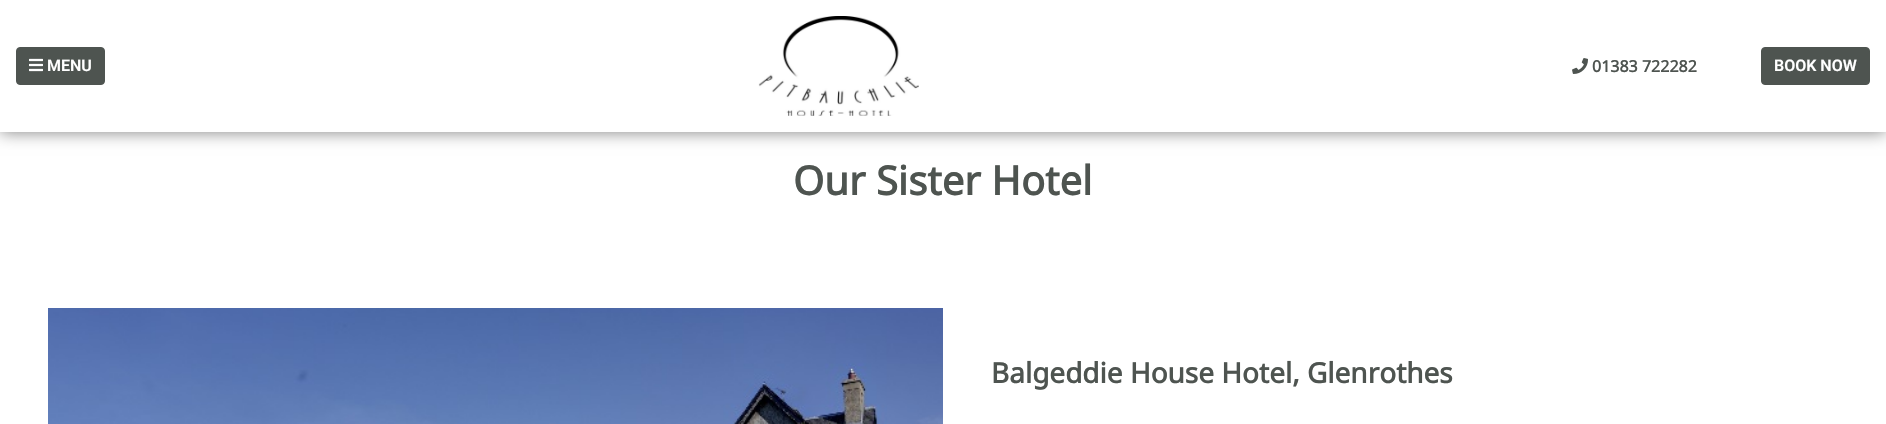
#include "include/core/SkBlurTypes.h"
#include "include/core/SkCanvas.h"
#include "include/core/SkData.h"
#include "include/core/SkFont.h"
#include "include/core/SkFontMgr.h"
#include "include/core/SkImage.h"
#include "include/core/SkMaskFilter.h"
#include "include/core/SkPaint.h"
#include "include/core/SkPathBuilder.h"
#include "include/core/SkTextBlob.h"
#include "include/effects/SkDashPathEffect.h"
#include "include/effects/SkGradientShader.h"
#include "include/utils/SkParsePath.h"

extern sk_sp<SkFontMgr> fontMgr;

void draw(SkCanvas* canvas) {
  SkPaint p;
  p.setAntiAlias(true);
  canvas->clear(SK_ColorWHITE);
  p.setColor(SkColorSetARGB(128, 0, 0, 0));
  p.setMaskFilter(SkMaskFilter::MakeBlur(kNormal_SkBlurStyle, 8));
  canvas->drawRect(SkRect::MakeLTRB(0, 0, 1886, 132), p);
  p.setMaskFilter(nullptr);
  p.setColor(SK_ColorWHITE);
  canvas->drawRect(SkRect::MakeLTRB(0, 0, 1886, 132), p);
  p.setColor(SkColorSetRGB(78, 84, 80));
  canvas->drawRoundRect(SkRect::MakeLTRB(16.5f, 47.5f, 104.5f, 84.5f), 3.5f, 3.5f, p);
  p.setStyle(SkPaint::kStroke_Style);
  p.setStrokeWidth(1);
  canvas->drawRoundRect(SkRect::MakeLTRB(16.5f, 47.5f, 104.5f, 84.5f), 3.5f, 3.5f, p);
  canvas->drawImageRect(SkImages::DeferredFromEncodedData(SkData::MakeFromFileName("images/1.png")), SkRect::MakeLTRB(29, 58, 43, 72), SkSamplingOptions());
  canvas->drawImageRect(SkImages::DeferredFromEncodedData(SkData::MakeFromFileName("images/2.png")), SkRect::MakeLTRB(758, 16, 919, 116), SkSamplingOptions());
  canvas->drawImageRect(SkImages::DeferredFromEncodedData(SkData::MakeFromFileName("images/3.png")), SkRect::MakeLTRB(1572, 58, 1588, 74), SkSamplingOptions());
  p.setStyle(SkPaint::kFill_Style);
  canvas->drawRoundRect(SkRect::MakeLTRB(1761.5f, 47.5f, 1869.5f, 84.5f), 3.5f, 3.5f, p);
  p.setStyle(SkPaint::kStroke_Style);
  canvas->drawRoundRect(SkRect::MakeLTRB(1761.5f, 47.5f, 1869.5f, 84.5f), 3.5f, 3.5f, p);
  canvas->drawImageRect(SkImages::DeferredFromEncodedData(SkData::MakeFromFileName("images/4.png")), SkRect::MakeLTRB(48, 308, 943, 424), SkSamplingOptions());
  SkFont font1(fontMgr->matchFamilyStyle("Roboto", SkFontStyle(600, SkFontStyle::kNormal_Width, SkFontStyle::kUpright_Slant)), 16);
  font1.setSubpixel(true);
  p.setStyle(SkPaint::kFill_Style);
  p.setColor(SK_ColorWHITE);
  canvas->drawString("MENU", 47, 71, font1, p);
  SkFont font2(fontMgr->matchFamilyStyle("Noto Sans", SkFontStyle::Bold()), 16);
  font2.setSubpixel(true);
  p.setColor(SkColorSetRGB(78, 84, 80));
  canvas->drawString("01383 722282", 1592, 72, font2, p);
  p.setColor(SK_ColorWHITE);
  canvas->drawString("BOOK NOW", 1774, 71, font1, p);
  SkFont font3(fontMgr->matchFamilyStyle("Noto Sans", SkFontStyle::Bold()), 40);
  font3.setSubpixel(true);
  p.setColor(SkColorSetRGB(78, 84, 80));
  canvas->drawString("Our Sister Hotel", 793, 195, font3, p);
  SkFont font4(fontMgr->matchFamilyStyle("Noto Sans", SkFontStyle::Bold()), 28);
  font4.setSubpixel(true);
  canvas->drawString("Balgeddie House Hotel, Glenrothes", 991, 383, font4, p);
}
